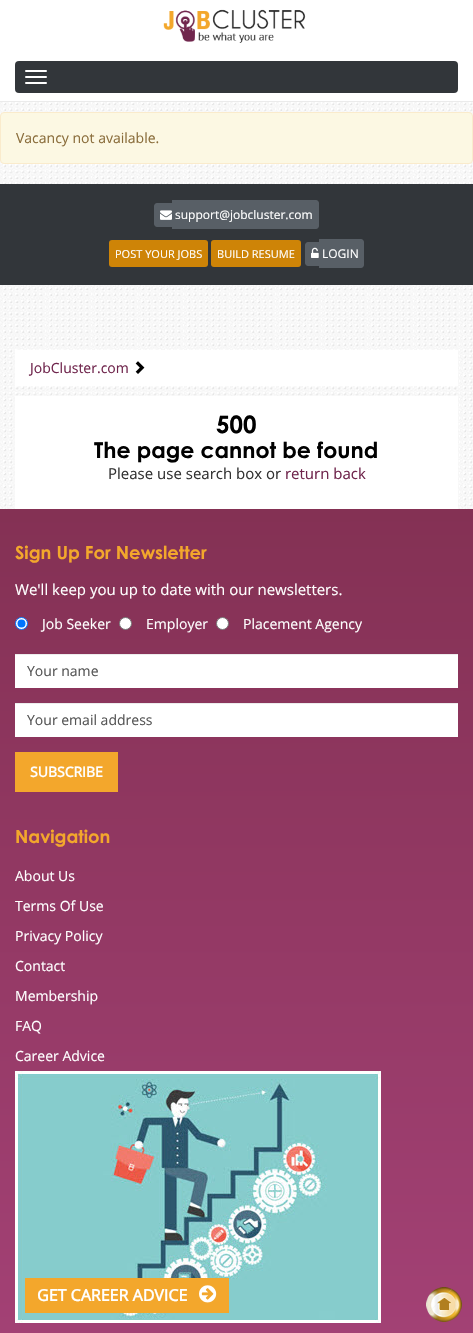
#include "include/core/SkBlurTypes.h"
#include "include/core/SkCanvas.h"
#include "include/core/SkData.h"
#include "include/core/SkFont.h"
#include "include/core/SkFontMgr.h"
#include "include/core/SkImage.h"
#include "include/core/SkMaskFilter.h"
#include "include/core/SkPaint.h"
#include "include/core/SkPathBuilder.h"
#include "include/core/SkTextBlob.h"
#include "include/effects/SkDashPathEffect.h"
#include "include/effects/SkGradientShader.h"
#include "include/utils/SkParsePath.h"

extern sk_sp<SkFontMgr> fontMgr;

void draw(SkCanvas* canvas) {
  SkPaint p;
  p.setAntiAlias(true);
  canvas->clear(SK_ColorWHITE);
  canvas->drawImageRect(SkImages::DeferredFromEncodedData(SkData::MakeFromFileName("images/1.png")), SkRect::MakeLTRB(0, 102, 473, 509), SkSamplingOptions());
  p.setColor(SkColorSetRGB(252, 248, 227));
  canvas->drawRoundRect(SkRect::MakeLTRB(0.5f, 112.5f, 472.5f, 163.5f), 3.5f, 3.5f, p);
  p.setStyle(SkPaint::kStroke_Style);
  p.setStrokeWidth(1);
  p.setColor(SkColorSetRGB(250, 235, 204));
  canvas->drawRoundRect(SkRect::MakeLTRB(0.5f, 112.5f, 472.5f, 163.5f), 3.5f, 3.5f, p);
  p.setStyle(SkPaint::kFill_Style);
  p.setColor(SkColorSetRGB(235, 235, 235));
  canvas->drawRect(SkRect::MakeLTRB(0, 101, 473, 102), p);
  canvas->drawImageRect(SkImages::DeferredFromEncodedData(SkData::MakeFromFileName("images/2.png")), SkRect::MakeLTRB(163, 9, 306, 43), SkSamplingOptions());
  p.setColor(SkColorSetRGB(50, 54, 58));
  canvas->drawRoundRect(SkRect::MakeLTRB(15, 61, 458, 93), 4, 4, p);
  p.setColor(SK_ColorWHITE);
  canvas->drawRoundRect(SkRect::MakeLTRB(25, 70, 47, 72), 1, 1, p);
  canvas->drawRoundRect(SkRect::MakeLTRB(25, 76, 47, 78), 1, 1, p);
  canvas->drawRoundRect(SkRect::MakeLTRB(25, 82, 47, 84), 1, 1, p);
  p.setColor(SkColorSetRGB(50, 54, 58));
  canvas->drawRect(SkRect::MakeLTRB(0, 184, 473, 285), p);
  p.setColor(SkColorSetRGB(88, 95, 102));
  canvas->drawPath(SkPathBuilder().moveTo(157, 203).lineTo(172, 203).lineTo(172, 227).lineTo(157, 227).cubicTo(155.5f, 227, 154, 225.5f, 154, 224).lineTo(154, 206).cubicTo(154, 204.5f, 155.5f, 203, 157, 203).close().detach(), p);
  canvas->drawRect(SkRect::MakeLTRB(172, 200, 175, 229), p);
  canvas->drawPath(SkPathBuilder().moveTo(175, 200).lineTo(316, 200).cubicTo(317.5f, 200, 319, 201.5f, 319, 203).lineTo(319, 226).cubicTo(319, 227.5f, 317.5f, 229, 316, 229).lineTo(175, 229).close().detach(), p);
  canvas->drawImageRect(SkImages::DeferredFromEncodedData(SkData::MakeFromFileName("images/3.png")), SkRect::MakeLTRB(160, 210, 172, 220), SkSamplingOptions());
  p.setColor(SkColorSetRGB(206, 132, 7));
  canvas->drawRoundRect(SkRect::MakeLTRB(109, 240, 208, 267), 3, 3, p);
  canvas->drawRoundRect(SkRect::MakeLTRB(211, 240, 301, 267), 3, 3, p);
  p.setColor(SkColorSetRGB(88, 95, 102));
  canvas->drawPath(SkPathBuilder().moveTo(308, 242).lineTo(319, 242).lineTo(319, 266).lineTo(308, 266).cubicTo(306.5f, 266, 305, 264.5f, 305, 263).lineTo(305, 245).cubicTo(305, 243.5f, 306.5f, 242, 308, 242).close().detach(), p);
  canvas->drawPath(SkPathBuilder().moveTo(319, 239).lineTo(361, 239).cubicTo(362.5f, 239, 364, 240.5f, 364, 242).lineTo(364, 265).cubicTo(364, 266.5f, 362.5f, 268, 361, 268).lineTo(319, 268).close().detach(), p);
  canvas->drawImageRect(SkImages::DeferredFromEncodedData(SkData::MakeFromFileName("images/4.png")), SkRect::MakeLTRB(311, 247, 319, 258), SkSamplingOptions());
  p.setColor(SK_ColorWHITE);
  canvas->drawRect(SkRect::MakeLTRB(15, 350, 458, 386), p);
  canvas->drawImageRect(SkImages::DeferredFromEncodedData(SkData::MakeFromFileName("images/5.png")), SkRect::MakeLTRB(135, 361, 145, 374), SkSamplingOptions());
  canvas->drawRect(SkRect::MakeLTRB(15, 396, 458, 509), p);
  {
    const SkColor colors[] = {SkColorSetRGB(132, 49, 84), SkColorSetRGB(163, 65, 117)};
    const float stops[] = {0, 1};
    const SkPoint ends[] = {{236, 509}, {237, 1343}};
    p.setShader(SkGradientShader::MakeLinear(ends, colors, stops, 2, SkTileMode::kClamp));
    p.setAlpha(255);
  }
  canvas->drawRect(SkRect::MakeLTRB(0, 509, 473, 1333), p);
  p.setShader(nullptr);
  p.setColor(SK_ColorWHITE);
  canvas->drawCircle(21.5f, 623.5f, 6, p);
  p.setStyle(SkPaint::kStroke_Style);
  p.setColor(SkColorSetRGB(0, 117, 255));
  canvas->drawCircle(21.5f, 623.5f, 6, p);
  p.setStyle(SkPaint::kFill_Style);
  canvas->drawCircle(21.5f, 623.5f, 4, p);
  p.setColor(SK_ColorWHITE);
  canvas->drawCircle(125.5f, 623.5f, 6, p);
  p.setStyle(SkPaint::kStroke_Style);
  p.setColor(SkColorSetRGB(118, 118, 118));
  canvas->drawCircle(125.5f, 623.5f, 6, p);
  p.setStyle(SkPaint::kFill_Style);
  p.setColor(SK_ColorWHITE);
  canvas->drawCircle(222.5f, 623.5f, 6, p);
  p.setStyle(SkPaint::kStroke_Style);
  p.setColor(SkColorSetRGB(118, 118, 118));
  canvas->drawCircle(222.5f, 623.5f, 6, p);
  p.setStyle(SkPaint::kFill_Style);
  p.setColor(SK_ColorWHITE);
  canvas->drawRect(SkRect::MakeLTRB(15, 655, 458, 688), p);
  p.setColor(SkColorSetRGB(236, 236, 236));
  canvas->drawRect(SkRect::MakeLTRB(15, 654, 458, 655), p);
  p.setColor(SK_ColorWHITE);
  canvas->drawRect(SkRect::MakeLTRB(15, 704, 458, 737), p);
  p.setColor(SkColorSetRGB(236, 236, 236));
  canvas->drawRect(SkRect::MakeLTRB(15, 703, 458, 704), p);
  p.setColor(SkColorSetRGB(243, 167, 44));
  canvas->drawRect(SkRect::MakeLTRB(15, 752, 118, 792), p);
  canvas->drawImageRect(SkImages::DeferredFromEncodedData(SkData::MakeFromFileName("images/6.png")), SkRect::MakeLTRB(15, 1071, 381, 1323), SkSamplingOptions());
  canvas->drawRect(SkRect::MakeLTRB(25, 1278, 229, 1313), p);
  canvas->drawImageRect(SkImages::DeferredFromEncodedData(SkData::MakeFromFileName("images/7.png")), SkRect::MakeLTRB(199, 1285, 217, 1303), SkSamplingOptions());
  canvas->drawImageRect(SkImages::DeferredFromEncodedData(SkData::MakeFromFileName("images/8.png")), SkRect::MakeLTRB(426, 1287, 462, 1322), SkSamplingOptions());
  SkFont font1(fontMgr->matchFamilyStyle("Open Sans", SkFontStyle::Normal()), 14);
  font1.setSubpixel(true);
  p.setColor(SkColorSetRGB(138, 109, 59));
  canvas->drawString("Vacancy not available.", 16, 143, font1, p);
  SkFont font2(fontMgr->matchFamilyStyle("Open Sans", SkFontStyle::Normal()), 12);
  font2.setSubpixel(true);
  p.setColor(SK_ColorWHITE);
  canvas->drawString("support@jobcluster.com", 175, 219, font2, p);
  SkFont font3(fontMgr->matchFamilyStyle("Open Sans", SkFontStyle::Normal()), 11);
  font3.setSubpixel(true);
  canvas->drawString("POST YOUR JOBS", 115, 258, font3, p);
  canvas->drawString("BUILD RESUME", 217, 258, font3, p);
  canvas->drawString("LOGIN", 322, 258, font2, p);
  p.setColor(SkColorSetRGB(112, 38, 77));
  canvas->drawString("JobCluster.com", 30, 373, font1, p);
  SkFont font4(fontMgr->matchFamilyStyle("Century Gothic", SkFontStyle::Bold()), 24);
  font4.setSubpixel(true);
  p.setColor(SK_ColorBLACK);
  canvas->drawString("500", 216, 433, font4, p);
  SkFont font5(fontMgr->matchFamilyStyle("Century Gothic", SkFontStyle::Bold()), 22);
  font5.setSubpixel(true);
  canvas->drawString("The page cannot be found", 94, 458, font5, p);
  SkFont font6(fontMgr->matchFamilyStyle("Open Sans", SkFontStyle::Normal()), 15);
  font6.setSubpixel(true);
  p.setColor(SkColorSetRGB(51, 51, 51));
  canvas->drawString("Please use search box or", 108, 479, font6, p);
  p.setColor(SkColorSetRGB(112, 38, 77));
  canvas->drawString("return back", 285, 479, font6, p);
  SkFont font7(fontMgr->matchFamilyStyle("Century Gothic", SkFontStyle::Bold()), 18);
  font7.setSubpixel(true);
  p.setColor(SkColorSetRGB(243, 167, 44));
  canvas->drawString("Sign Up For Newsletter", 15, 559, font7, p);
  p.setColor(SK_ColorWHITE);
  canvas->drawString("We'll keep you up to date with our newsletters.", 15, 595, font6, p);
  canvas->drawString("Job Seeker", 42, 629, font1, p);
  canvas->drawString("Employer", 146, 629, font1, p);
  canvas->drawString("Placement Agency", 243, 629, font1, p);
  p.setColor(SkColorSetRGB(85, 85, 85));
  canvas->drawString("Your name", 27, 676, font1, p);
  canvas->drawString("Your email address", 27, 725, font1, p);
  SkFont font8(fontMgr->matchFamilyStyle("Open Sans", SkFontStyle::Bold()), 14);
  font8.setSubpixel(true);
  p.setColor(SK_ColorWHITE);
  canvas->drawString("SUBSCRIBE", 30, 777, font8, p);
  p.setColor(SkColorSetRGB(243, 167, 44));
  canvas->drawString("Navigation", 15, 843, font7, p);
  p.setColor(SK_ColorWHITE);
  canvas->drawString("About Us", 15, 881, font1, p);
  canvas->drawString("Terms Of Use", 15, 911, font1, p);
  canvas->drawString("Privacy Policy", 15, 941, font1, p);
  canvas->drawString("Contact", 15, 971, font1, p);
  canvas->drawString("Membership", 15, 1001, font1, p);
  canvas->drawString("FAQ", 15, 1031, font1, p);
  canvas->drawString("Career Advice", 15, 1061, font1, p);
  SkFont font9(fontMgr->matchFamilyStyle("Open Sans", SkFontStyle::Bold()), 16);
  font9.setSubpixel(true);
  canvas->drawString("GET CAREER ADVICE", 37, 1301, font9, p);
}
